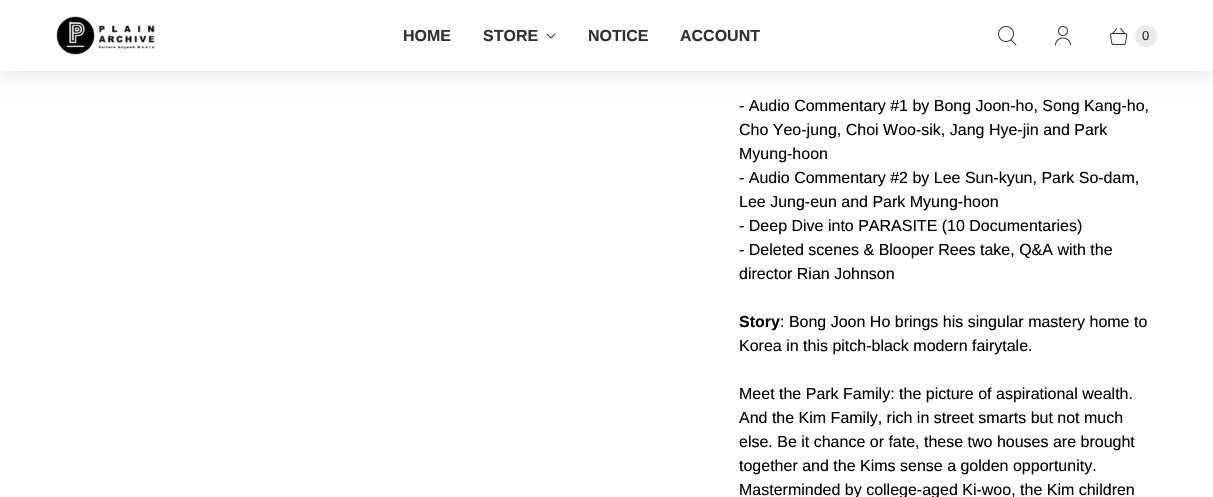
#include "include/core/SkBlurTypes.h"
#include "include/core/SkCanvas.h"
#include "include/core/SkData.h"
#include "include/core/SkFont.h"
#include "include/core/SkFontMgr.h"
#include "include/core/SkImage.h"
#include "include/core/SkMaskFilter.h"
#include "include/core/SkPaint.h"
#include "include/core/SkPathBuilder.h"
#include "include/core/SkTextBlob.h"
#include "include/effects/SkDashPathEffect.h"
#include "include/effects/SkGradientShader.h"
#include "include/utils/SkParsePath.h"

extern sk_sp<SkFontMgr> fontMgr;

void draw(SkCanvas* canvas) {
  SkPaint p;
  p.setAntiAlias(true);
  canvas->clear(SK_ColorWHITE);
  p.setColor(SkColorSetARGB(26, 0, 0, 0));
  p.setMaskFilter(SkMaskFilter::MakeBlur(kNormal_SkBlurStyle, 8));
  canvas->drawRect(SkRect::MakeLTRB(-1, -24, 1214, 74), p);
  p.setMaskFilter(nullptr);
  p.setColor(SK_ColorWHITE);
  canvas->drawRect(SkRect::MakeLTRB(0, 0, 1213, 71), p);
  canvas->drawImageRect(SkImages::DeferredFromEncodedData(SkData::MakeFromFileName("images/1.png")), SkRect::MakeLTRB(56, 16, 155, 55), SkSamplingOptions());
  canvas->drawImageRect(SkImages::DeferredFromEncodedData(SkData::MakeFromFileName("images/2.png")), SkRect::MakeLTRB(546, 33, 556, 39), SkSamplingOptions());
  canvas->drawImageRect(SkImages::DeferredFromEncodedData(SkData::MakeFromFileName("images/3.png")), SkRect::MakeLTRB(998, 26, 1017, 46), SkSamplingOptions());
  canvas->drawImageRect(SkImages::DeferredFromEncodedData(SkData::MakeFromFileName("images/4.png")), SkRect::MakeLTRB(1055, 26, 1071, 46), SkSamplingOptions());
  canvas->drawImageRect(SkImages::DeferredFromEncodedData(SkData::MakeFromFileName("images/5.png")), SkRect::MakeLTRB(1110, 28, 1128, 45), SkSamplingOptions());
  p.setColor(SkColorSetRGB(234, 234, 234));
  canvas->drawCircle(1146, 36, 11, p);
  SkFont font1(fontMgr->matchFamilyStyle("Liberation Sans", SkFontStyle::Bold()), 16);
  font1.setSubpixel(true);
  p.setColor(SkColorSetRGB(48, 48, 48));
  canvas->drawString("HOME", 403, 41, font1, p);
  canvas->drawString("STORE", 483, 41, font1, p);
  canvas->drawString("NOTICE", 588, 41, font1, p);
  canvas->drawString("ACCOUNT", 680, 41, font1, p);
  SkFont font2(fontMgr->matchFamilyStyle("Liberation Sans", SkFontStyle::Normal()), 13);
  font2.setSubpixel(true);
  canvas->drawString("0", 1142, 40, font2, p);
  SkFont font3(fontMgr->matchFamilyStyle("Liberation Sans", SkFontStyle::Normal()), 16);
  font3.setSubpixel(true);
  p.setColor(SK_ColorBLACK);
  canvas->drawString("- Audio Commentary #1 by Bong Joon-ho, Song Kang-ho,", 739, 111, font3, p);
  canvas->drawString("Cho Yeo-jung, Choi Woo-sik, Jang Hye-jin and Park", 739, 135, font3, p);
  canvas->drawString("Myung-hoon", 739, 159, font3, p);
  canvas->drawString("- Audio Commentary #2 by Lee Sun-kyun, Park So-dam,", 739, 183, font3, p);
  canvas->drawString("Lee Jung-eun and Park Myung-hoon", 739, 207, font3, p);
  canvas->drawString("- Deep Dive into PARASITE (10 Documentaries)", 739, 231, font3, p);
  canvas->drawString("- Deleted scenes & Blooper Rees take, Q&A with the", 739, 255, font3, p);
  canvas->drawString("director Rian Johnson", 739, 279, font3, p);
  canvas->drawString("Story", 739, 327, font1, p);
  canvas->drawString(": Bong Joon Ho brings his singular mastery home to", 780, 327, font3, p);
  canvas->drawString("Korea in this pitch-black modern fairytale.", 739, 351, font3, p);
  canvas->drawString("Meet the Park Family: the picture of aspirational wealth.", 739, 399, font3, p);
  canvas->drawString("And the Kim Family, rich in street smarts but not much", 739, 423, font3, p);
  canvas->drawString("else. Be it chance or fate, these two houses are brought", 739, 447, font3, p);
  canvas->drawString("together and the Kims sense a golden opportunity.", 739, 471, font3, p);
  canvas->drawString("Masterminded by college-aged Ki-woo, the Kim children", 739, 495, font3, p);
}
